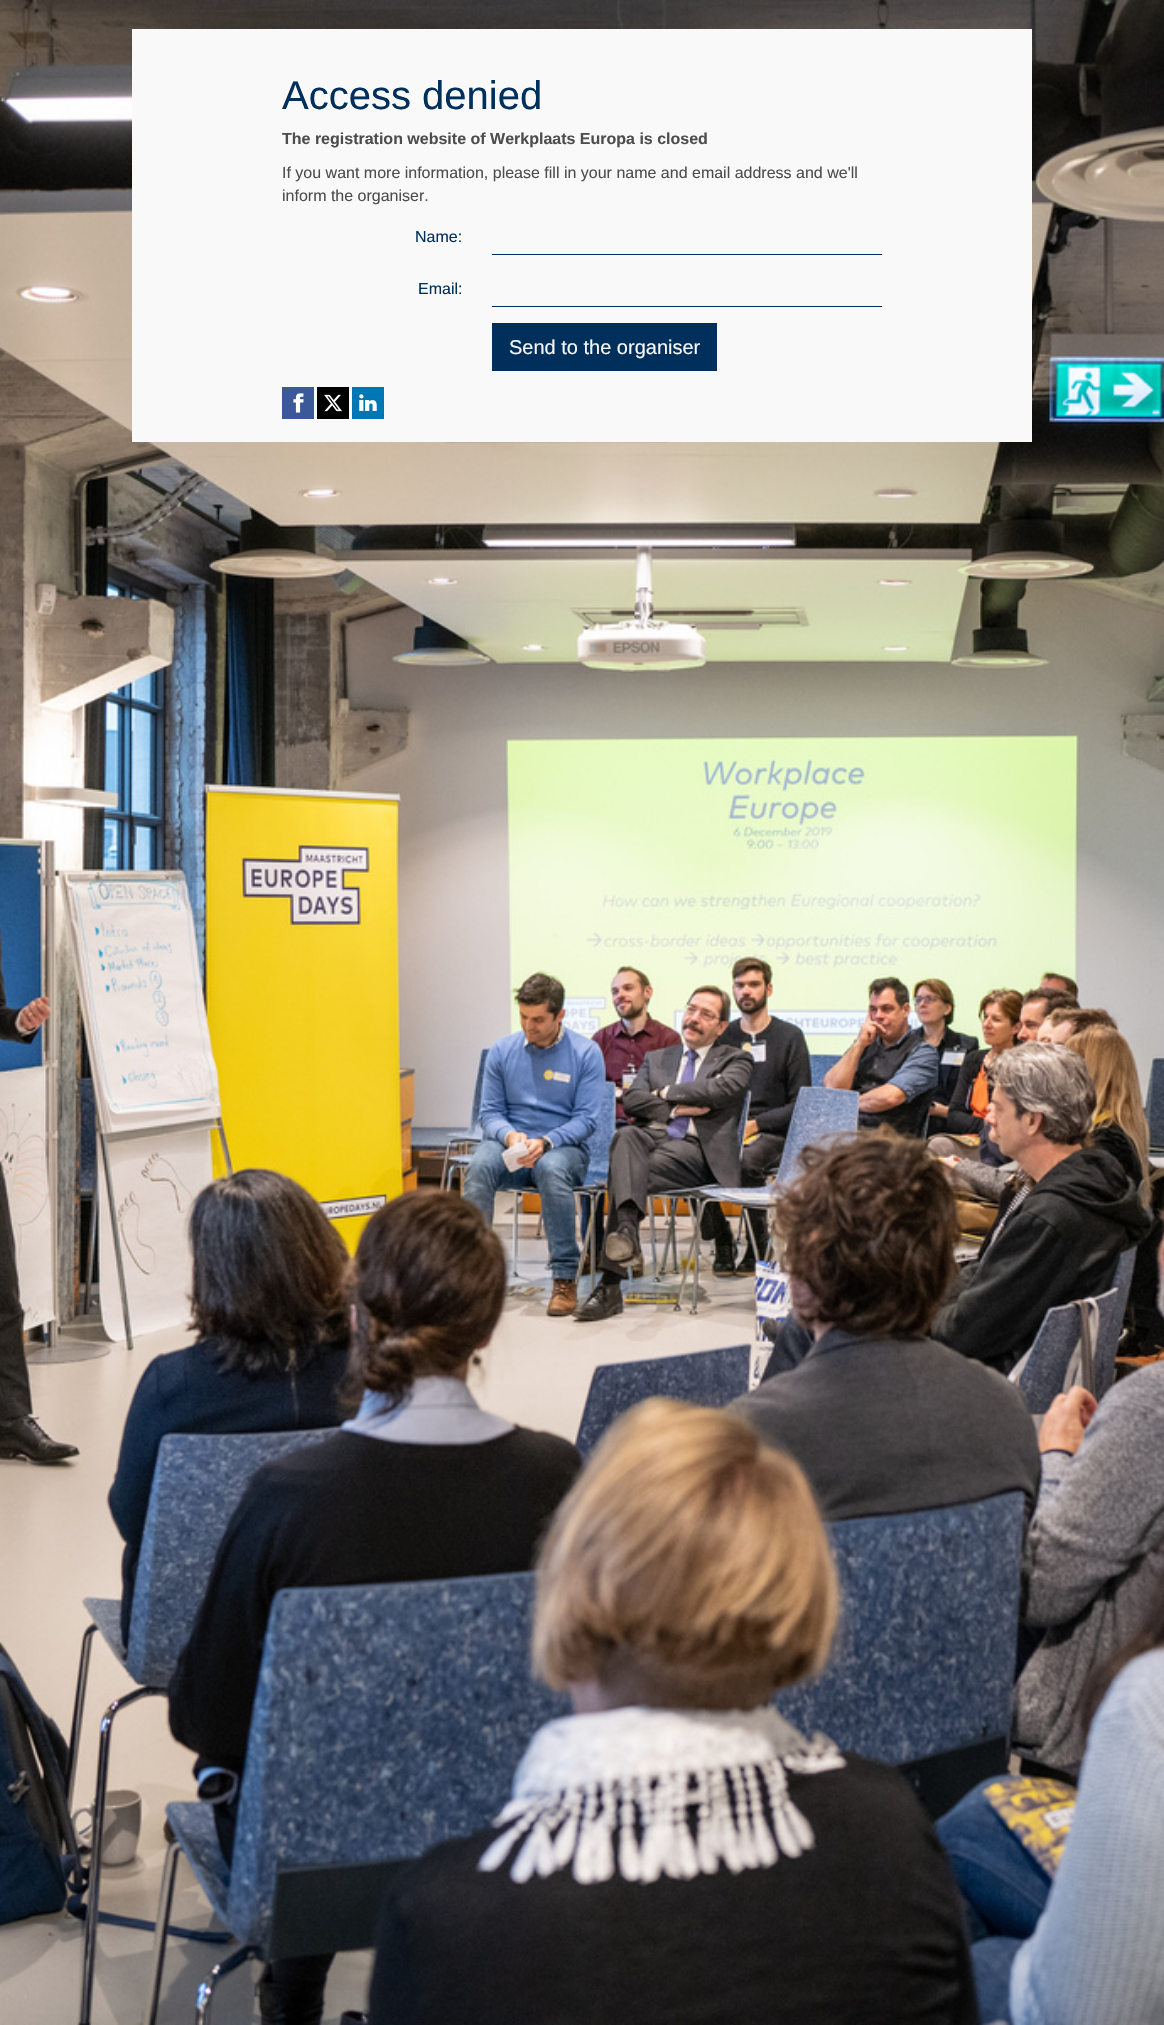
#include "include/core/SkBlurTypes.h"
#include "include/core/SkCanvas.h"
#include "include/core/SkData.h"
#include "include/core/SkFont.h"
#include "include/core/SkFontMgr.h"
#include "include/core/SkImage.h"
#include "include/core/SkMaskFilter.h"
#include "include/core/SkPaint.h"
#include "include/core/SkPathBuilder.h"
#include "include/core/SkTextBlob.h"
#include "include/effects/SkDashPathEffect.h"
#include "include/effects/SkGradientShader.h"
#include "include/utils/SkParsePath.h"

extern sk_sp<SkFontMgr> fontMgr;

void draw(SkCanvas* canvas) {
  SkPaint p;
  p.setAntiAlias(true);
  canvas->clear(SK_ColorWHITE);
  canvas->drawImageRect(SkImages::DeferredFromEncodedData(SkData::MakeFromFileName("images/1.png")), SkRect::MakeLTRB(0, 0, 1164, 2025), SkSamplingOptions());
  p.setColor(SkColorSetRGB(249, 249, 249));
  canvas->drawRect(SkRect::MakeLTRB(132, 29, 1032, 442), p);
  p.setColor(SkColorSetRGB(0, 47, 92));
  canvas->drawRect(SkRect::MakeLTRB(492, 254, 882, 255), p);
  canvas->drawRect(SkRect::MakeLTRB(492, 306, 882, 307), p);
  canvas->drawRect(SkRect::MakeLTRB(492, 323, 717, 371), p);
  p.setColor(SkColorSetRGB(59, 89, 152));
  canvas->drawRect(SkRect::MakeLTRB(282, 387, 314, 419), p);
  canvas->drawImageRect(SkImages::DeferredFromEncodedData(SkData::MakeFromFileName("images/2.png")), SkRect::MakeLTRB(293, 393, 304, 413), SkSamplingOptions());
  p.setColor(SK_ColorBLACK);
  canvas->drawRect(SkRect::MakeLTRB(317, 387, 349, 419), p);
  canvas->drawImageRect(SkImages::DeferredFromEncodedData(SkData::MakeFromFileName("images/3.png")), SkRect::MakeLTRB(324, 394, 342, 412), SkSamplingOptions());
  p.setColor(SkColorSetRGB(0, 119, 181));
  canvas->drawRect(SkRect::MakeLTRB(352, 387, 384, 419), p);
  canvas->drawImageRect(SkImages::DeferredFromEncodedData(SkData::MakeFromFileName("images/4.png")), SkRect::MakeLTRB(359, 394, 377, 411), SkSamplingOptions());
  SkFont font1(fontMgr->matchFamilyStyle("Liberation Sans", SkFontStyle::Normal()), 40);
  font1.setSubpixel(true);
  p.setColor(SkColorSetRGB(0, 47, 92));
  canvas->drawString("Access denied", 282, 109, font1, p);
  SkFont font2(fontMgr->matchFamilyStyle("Liberation Sans", SkFontStyle::Bold()), 16);
  font2.setSubpixel(true);
  p.setColor(SkColorSetRGB(77, 77, 77));
  canvas->drawString("The registration website of Werkplaats Europa is closed", 282, 144, font2, p);
  SkFont font3(fontMgr->matchFamilyStyle("Liberation Sans", SkFontStyle::Normal()), 16);
  font3.setSubpixel(true);
  canvas->drawString("If you want more information, please fill in your name and email address and we'll", 282, 178, font3, p);
  canvas->drawString("inform the organiser.", 282, 201, font3, p);
  p.setColor(SkColorSetRGB(0, 47, 92));
  canvas->drawString("Name:", 415, 242, font3, p);
  canvas->drawString("Email:", 418, 294, font3, p);
  SkFont font4(fontMgr->matchFamilyStyle("Liberation Sans", SkFontStyle::Normal()), 20);
  font4.setSubpixel(true);
  p.setColor(SkColorSetRGB(249, 249, 249));
  canvas->drawString("Send to the organiser", 509, 354, font4, p);
}
